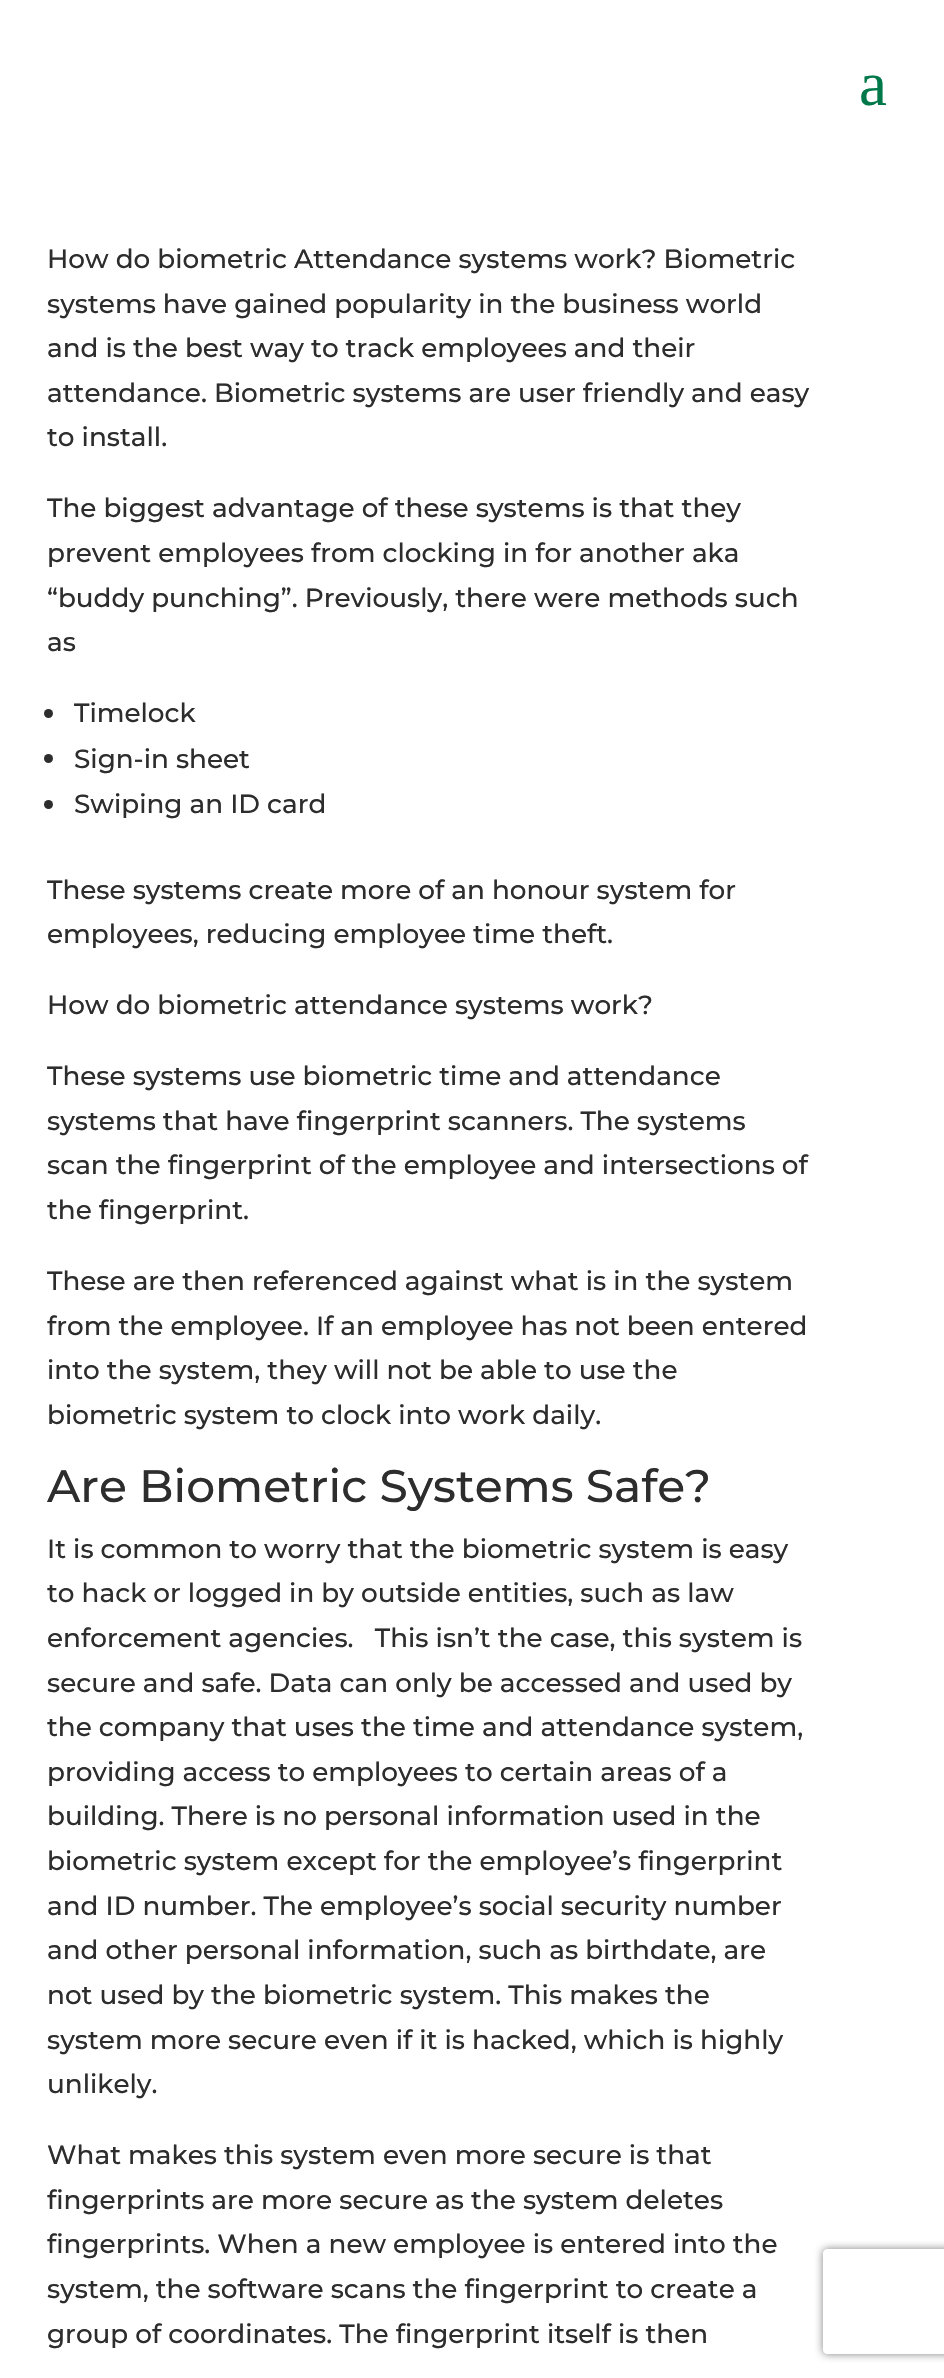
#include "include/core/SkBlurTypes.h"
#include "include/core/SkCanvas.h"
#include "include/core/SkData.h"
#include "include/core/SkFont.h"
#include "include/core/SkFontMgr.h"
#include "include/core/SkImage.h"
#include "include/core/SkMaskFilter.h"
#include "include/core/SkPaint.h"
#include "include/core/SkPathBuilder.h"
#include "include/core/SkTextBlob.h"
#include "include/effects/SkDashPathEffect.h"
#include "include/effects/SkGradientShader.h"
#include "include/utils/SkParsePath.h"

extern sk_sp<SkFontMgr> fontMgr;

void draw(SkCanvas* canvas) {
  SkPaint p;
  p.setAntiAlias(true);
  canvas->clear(SK_ColorWHITE);
  p.setColor(SkColorSetRGB(45, 45, 45));
  canvas->drawCircle(48.5f, 713.5f, 4.5f, p);
  canvas->drawCircle(48.5f, 758.5f, 4.5f, p);
  canvas->drawCircle(48.5f, 804.5f, 4.5f, p);
  canvas->save();
  canvas->clipPath(SkPathBuilder(SkPathFillType::kEvenOdd).moveTo(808, 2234).lineTo(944, 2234).lineTo(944, 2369).lineTo(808, 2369).close().moveTo(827, 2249).lineTo(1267, 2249).cubicTo(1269, 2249, 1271, 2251, 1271, 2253).lineTo(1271, 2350).cubicTo(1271, 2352, 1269, 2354, 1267, 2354).lineTo(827, 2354).cubicTo(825, 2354, 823, 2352, 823, 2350).lineTo(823, 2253).cubicTo(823, 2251, 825, 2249, 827, 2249).close().detach(), true);
  p.setColor(SkColorSetRGB(128, 128, 128));
  p.setMaskFilter(SkMaskFilter::MakeBlur(kNormal_SkBlurStyle, 4.5f));
  canvas->drawRoundRect(SkRect::MakeLTRB(823, 2249, 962, 2354), 4, 4, p);
  p.setMaskFilter(nullptr);
  canvas->restore();
  SkFont font1(fontMgr->matchFamilyStyle("Liberation Serif", SkFontStyle::Normal()), 63);
  font1.setSubpixel(true);
  p.setColor(SkColorSetRGB(0, 120, 73));
  canvas->drawString("a", 859, 105, font1, p);
  SkFont font2(fontMgr->matchFamilyStyle("Montserrat", SkFontStyle(500, SkFontStyle::kNormal_Width, SkFontStyle::kUpright_Slant)), 26.25f);
  font2.setSubpixel(true);
  p.setColor(SkColorSetRGB(45, 45, 45));
  canvas->drawString("How do biometric Attendance systems work? Biometric", 47, 268, font2, p);
  canvas->drawString("systems have gained popularity in the business world", 47, 313, font2, p);
  canvas->drawString("and is the best way to track employees and their", 47, 357, font2, p);
  canvas->drawString("attendance. Biometric systems are user friendly and easy", 47, 402, font2, p);
  canvas->drawString("to install.", 47, 446, font2, p);
  canvas->drawString("The biggest advantage of these systems is that they", 47, 517, font2, p);
  canvas->drawString("prevent employees from clocking in for another aka", 47, 562, font2, p);
  canvas->drawString("“buddy punching”. Previously, there were methods such", 47, 607, font2, p);
  canvas->drawString("as", 47, 651, font2, p);
  canvas->drawString("Timelock", 74, 722, font2, p);
  canvas->drawString("Sign-in sheet", 74, 768, font2, p);
  canvas->drawString("Swiping an ID card", 74, 813, font2, p);
  canvas->drawString("These systems create more of an honour system for", 47, 899, font2, p);
  canvas->drawString("employees, reducing employee time theft.", 47, 943, font2, p);
  canvas->drawString("How do biometric attendance systems work?", 47, 1014, font2, p);
  canvas->drawString("These systems use biometric time and attendance", 47, 1085, font2, p);
  canvas->drawString("systems that have fingerprint scanners. The systems", 47, 1130, font2, p);
  canvas->drawString("scan the fingerprint of the employee and intersections of", 47, 1174, font2, p);
  canvas->drawString("the fingerprint.", 47, 1219, font2, p);
  canvas->drawString("These are then referenced against what is in the system", 47, 1290, font2, p);
  canvas->drawString("from the employee. If an employee has not been entered", 47, 1335, font2, p);
  canvas->drawString("into the system, they will not be able to use the", 47, 1379, font2, p);
  canvas->drawString("biometric system to clock into work daily.", 47, 1424, font2, p);
  SkFont font3(fontMgr->matchFamilyStyle("Montserrat", SkFontStyle(500, SkFontStyle::kNormal_Width, SkFontStyle::kUpright_Slant)), 45.5f);
  font3.setSubpixel(true);
  canvas->drawString("Are Biometric Systems Safe?", 47, 1502, font3, p);
  canvas->drawString("It is common to worry that the biometric system is easy", 47, 1558, font2, p);
  canvas->drawString("to hack or logged in by outside entities, such as law", 47, 1602, font2, p);
  canvas->drawString("enforcement agencies.   This isn’t the case, this system is", 47, 1647, font2, p);
  canvas->drawString("secure and safe. Data can only be accessed and used by", 47, 1692, font2, p);
  canvas->drawString("the company that uses the time and attendance system,", 47, 1736, font2, p);
  canvas->drawString("providing access to employees to certain areas of a", 47, 1781, font2, p);
  canvas->drawString("building. There is no personal information used in the", 47, 1825, font2, p);
  canvas->drawString("biometric system except for the employee’s fingerprint", 47, 1870, font2, p);
  canvas->drawString("and ID number. The employee’s social security number", 47, 1915, font2, p);
  canvas->drawString("and other personal information, such as birthdate, are", 47, 1959, font2, p);
  canvas->drawString("not used by the biometric system. This makes the", 47, 2004, font2, p);
  canvas->drawString("system more secure even if it is hacked, which is highly", 47, 2049, font2, p);
  canvas->drawString("unlikely.", 47, 2093, font2, p);
  canvas->drawString("What makes this system even more secure is that", 47, 2164, font2, p);
  canvas->drawString("fingerprints are more secure as the system deletes", 47, 2209, font2, p);
  canvas->drawString("fingerprints. When a new employee is entered into the", 47, 2253, font2, p);
  canvas->drawString("system, the software scans the fingerprint to create a", 47, 2298, font2, p);
  canvas->drawString("group of coordinates. The fingerprint itself is then", 47, 2343, font2, p);
}
